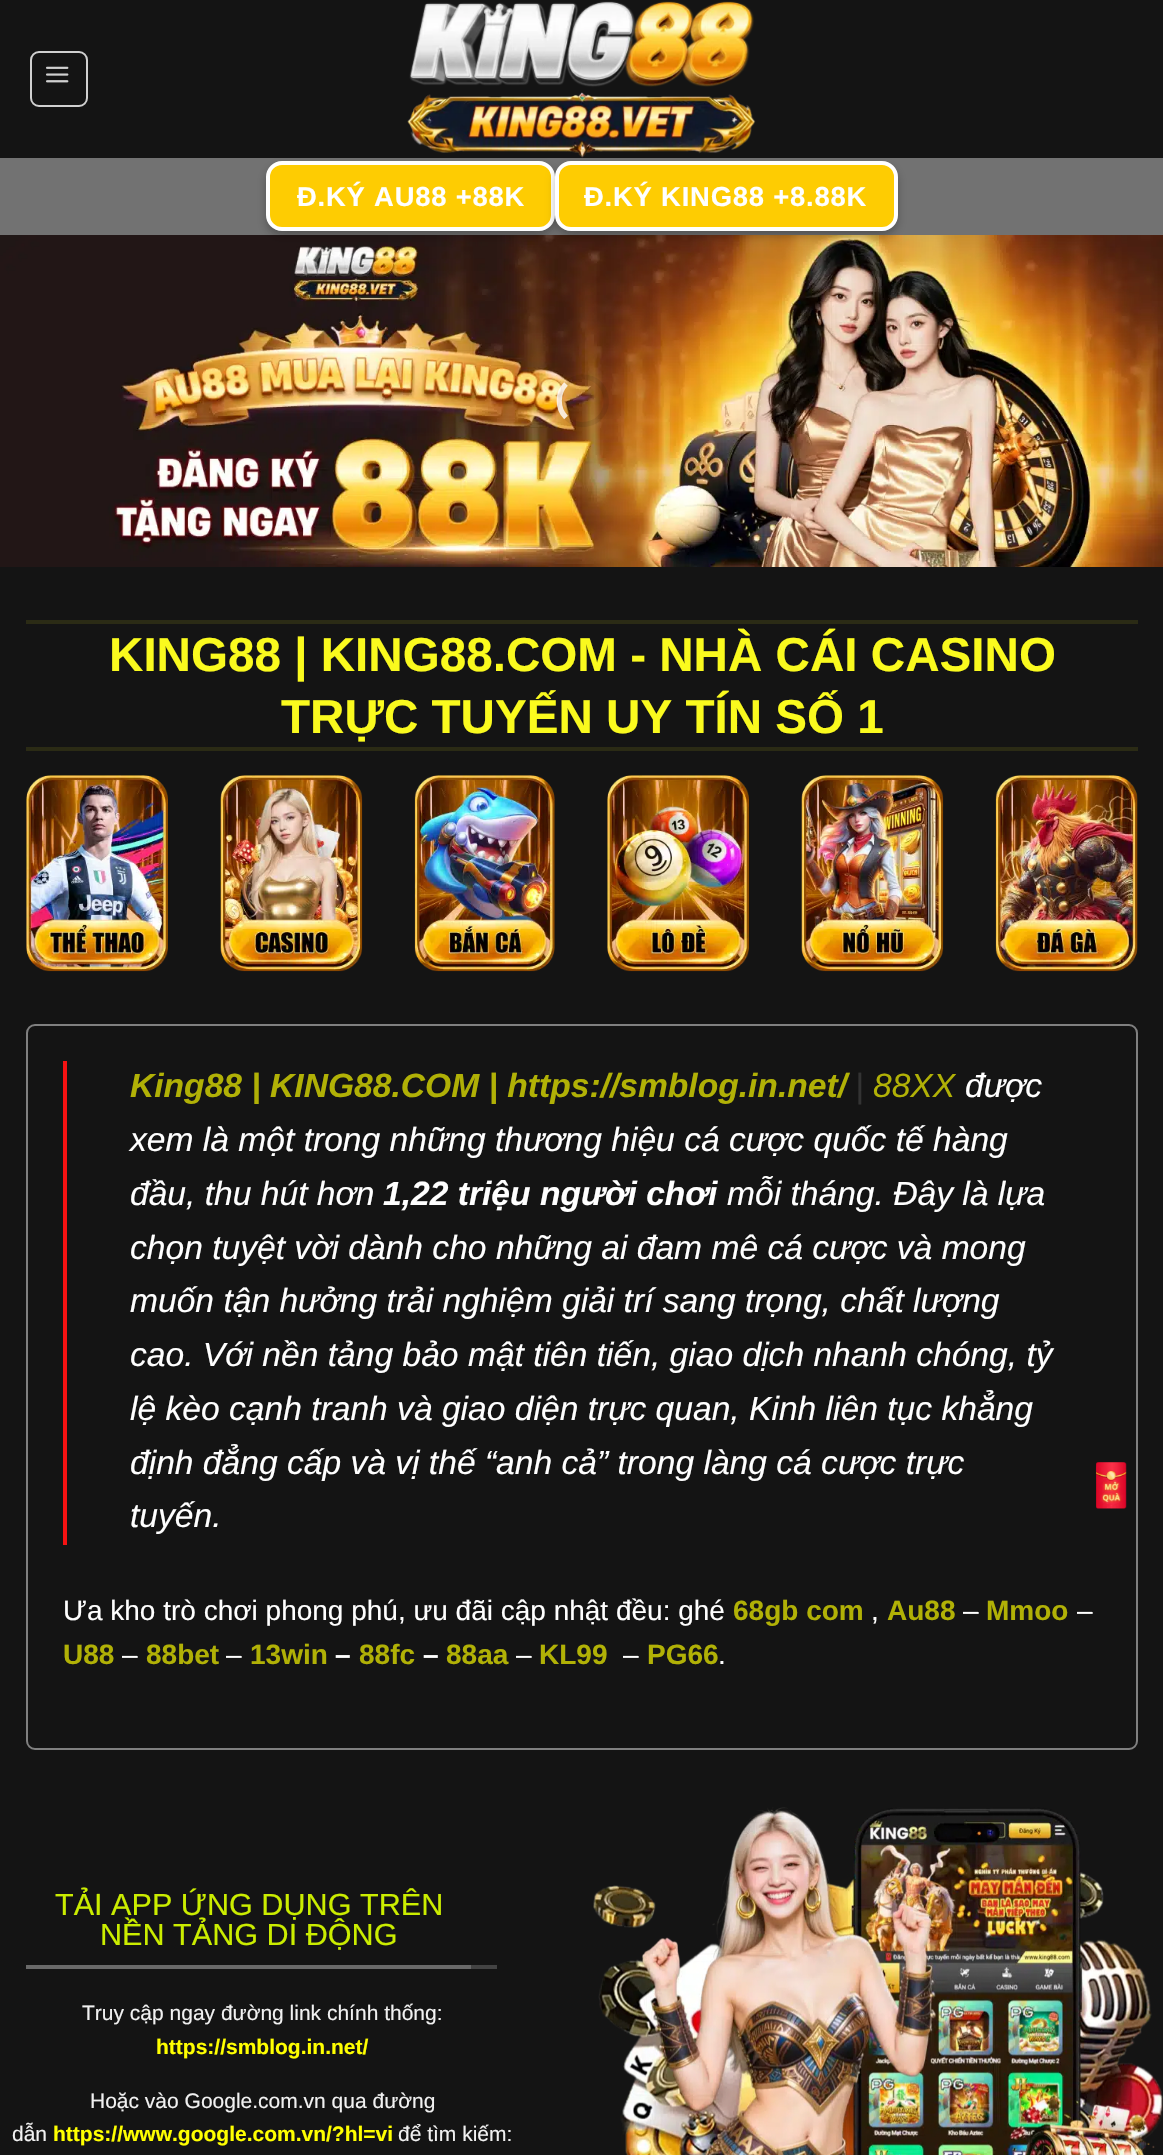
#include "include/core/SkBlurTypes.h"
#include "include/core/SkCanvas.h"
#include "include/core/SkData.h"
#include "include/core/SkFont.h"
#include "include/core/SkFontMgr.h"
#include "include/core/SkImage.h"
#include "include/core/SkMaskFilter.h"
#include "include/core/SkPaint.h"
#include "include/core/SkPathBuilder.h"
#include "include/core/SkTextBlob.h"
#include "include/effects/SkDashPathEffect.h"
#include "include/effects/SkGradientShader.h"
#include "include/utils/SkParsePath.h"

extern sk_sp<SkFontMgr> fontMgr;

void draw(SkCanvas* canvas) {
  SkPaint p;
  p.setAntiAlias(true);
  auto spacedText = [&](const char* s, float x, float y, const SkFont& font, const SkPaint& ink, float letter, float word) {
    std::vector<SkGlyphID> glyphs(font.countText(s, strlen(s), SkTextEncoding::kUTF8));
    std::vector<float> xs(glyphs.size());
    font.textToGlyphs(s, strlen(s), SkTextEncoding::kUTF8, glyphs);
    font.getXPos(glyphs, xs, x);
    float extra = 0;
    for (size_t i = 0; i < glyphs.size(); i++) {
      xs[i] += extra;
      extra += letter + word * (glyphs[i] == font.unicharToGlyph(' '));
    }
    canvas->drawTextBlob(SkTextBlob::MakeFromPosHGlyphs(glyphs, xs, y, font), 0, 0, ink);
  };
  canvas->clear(SkColorSetRGB(20, 20, 20));
  p.setStyle(SkPaint::kStroke_Style);
  p.setStrokeWidth(2);
  p.setColor(SkColorSetRGB(208, 208, 208));
  canvas->drawRoundRect(SkRect::MakeLTRB(31, 52, 87, 106), 8, 8, p);
  canvas->drawImageRect(SkImages::DeferredFromEncodedData(SkData::MakeFromFileName("images/1.png")), SkRect::MakeLTRB(46, 66, 69, 83), SkSamplingOptions());
  p.setStyle(SkPaint::kFill_Style);
  p.setColor(SkColorSetRGB(114, 114, 114));
  canvas->drawRect(SkRect::MakeLTRB(0, 158, 1163, 235), p);
  canvas->drawImageRect(SkImages::DeferredFromEncodedData(SkData::MakeFromFileName("images/3.png")), SkRect::MakeLTRB(0, 235, 1163, 567), SkSamplingOptions());
  p.setColor(SkColorSetARGB(59, 0, 0, 0));
  p.setMaskFilter(SkMaskFilter::MakeBlur(kNormal_SkBlurStyle, 5));
  canvas->drawRoundRect(SkRect::MakeLTRB(266, 166, 555, 236), 16, 16, p);
  p.setMaskFilter(nullptr);
  p.setColor(SkColorSetARGB(41, 0, 0, 0));
  p.setMaskFilter(SkMaskFilter::MakeBlur(kNormal_SkBlurStyle, 5));
  canvas->drawRoundRect(SkRect::MakeLTRB(273, 173, 548, 229), 9, 9, p);
  p.setMaskFilter(nullptr);
  p.setColor(SkColorSetRGB(254, 204, 2));
  canvas->drawRoundRect(SkRect::MakeLTRB(268, 163, 553, 229), 14, 14, p);
  p.setStyle(SkPaint::kStroke_Style);
  p.setStrokeWidth(4);
  p.setColor(SK_ColorWHITE);
  canvas->drawRoundRect(SkRect::MakeLTRB(268, 163, 553, 229), 14, 14, p);
  p.setStyle(SkPaint::kFill_Style);
  p.setColor(SkColorSetARGB(59, 0, 0, 0));
  p.setMaskFilter(SkMaskFilter::MakeBlur(kNormal_SkBlurStyle, 5));
  canvas->drawRoundRect(SkRect::MakeLTRB(555, 166, 898, 236), 16, 16, p);
  p.setMaskFilter(nullptr);
  p.setColor(SkColorSetARGB(41, 0, 0, 0));
  p.setMaskFilter(SkMaskFilter::MakeBlur(kNormal_SkBlurStyle, 5));
  canvas->drawRoundRect(SkRect::MakeLTRB(562, 173, 891, 229), 9, 9, p);
  p.setMaskFilter(nullptr);
  canvas->drawImageRect(SkImages::DeferredFromEncodedData(SkData::MakeFromFileName("images/2.png")), SkRect::MakeLTRB(407, 1, 756, 158), SkSamplingOptions());
  p.setColor(SkColorSetRGB(254, 204, 2));
  canvas->drawRoundRect(SkRect::MakeLTRB(557, 163, 896, 229), 14, 14, p);
  p.setStyle(SkPaint::kStroke_Style);
  p.setColor(SK_ColorWHITE);
  canvas->drawRoundRect(SkRect::MakeLTRB(557, 163, 896, 229), 14, 14, p);
  p.setStrokeWidth(5.2f);
  p.setColor(SkColorSetARGB(20, 0, 0, 0));
  canvas->drawPath(SkPathBuilder().moveTo(566, 384).cubicTo(570.5f, 379.5f, 576.5f, 377, 583, 377).cubicTo(611, 377, 615, 418.5f, 587.5f, 424).cubicTo(579.5f, 425.5f, 571.5f, 423, 566, 417.5f).detach(), p);
  p.setColor(SkColorSetARGB(204, 255, 255, 255));
  canvas->drawPath(SkPathBuilder().moveTo(566, 417.5f).cubicTo(557, 408.5f, 557, 393, 566, 384).detach(), p);
  p.setStyle(SkPaint::kFill_Style);
  p.setColor(SkColorSetRGB(43, 43, 21));
  canvas->drawRect(SkRect::MakeLTRB(26, 620, 1138, 624), p);
  canvas->drawRect(SkRect::MakeLTRB(26, 747, 1138, 751), p);
  canvas->drawImageRect(SkImages::DeferredFromEncodedData(SkData::MakeFromFileName("images/4.png")), SkRect::MakeLTRB(26, 775, 168, 972), SkSamplingOptions());
  canvas->drawImageRect(SkImages::DeferredFromEncodedData(SkData::MakeFromFileName("images/5.png")), SkRect::MakeLTRB(220, 775, 363, 972), SkSamplingOptions());
  canvas->drawImageRect(SkImages::DeferredFromEncodedData(SkData::MakeFromFileName("images/6.png")), SkRect::MakeLTRB(414, 775, 555, 972), SkSamplingOptions());
  canvas->drawImageRect(SkImages::DeferredFromEncodedData(SkData::MakeFromFileName("images/7.png")), SkRect::MakeLTRB(607, 775, 749, 972), SkSamplingOptions());
  canvas->drawImageRect(SkImages::DeferredFromEncodedData(SkData::MakeFromFileName("images/8.png")), SkRect::MakeLTRB(801, 775, 944, 972), SkSamplingOptions());
  canvas->drawImageRect(SkImages::DeferredFromEncodedData(SkData::MakeFromFileName("images/9.png")), SkRect::MakeLTRB(995, 775, 1138, 972), SkSamplingOptions());
  p.setStyle(SkPaint::kStroke_Style);
  p.setStrokeWidth(2);
  p.setColor(SkColorSetRGB(128, 128, 128));
  canvas->drawRoundRect(SkRect::MakeLTRB(27, 1025, 1137, 1749), 8, 8, p);
  p.setStyle(SkPaint::kFill_Style);
  p.setColor(SkColorSetRGB(246, 18, 18));
  canvas->drawRect(SkRect::MakeLTRB(63, 1061, 67, 1545), p);
  p.setColor(SkColorSetRGB(67, 67, 67));
  canvas->drawRect(SkRect::MakeLTRB(471, 1965, 497, 1969), p);
  p.setColor(SkColorSetRGB(105, 105, 105));
  canvas->drawRect(SkRect::MakeLTRB(26, 1965, 471, 1969), p);
  canvas->drawImageRect(SkImages::DeferredFromEncodedData(SkData::MakeFromFileName("images/10.png")), SkRect::MakeLTRB(593, 1807, 1163, 2155), SkSamplingOptions());
  canvas->drawImageRect(SkImages::DeferredFromEncodedData(SkData::MakeFromFileName("images/11.png")), SkRect::MakeLTRB(1095, 1462, 1127, 1509), SkSamplingOptions());
  SkFont font1(fontMgr->matchFamilyStyle("Liberation Sans", SkFontStyle::Bold()), 27.4f);
  font1.setSubpixel(true);
  p.setColor(SK_ColorWHITE);
  spacedText("Đ.KÝ AU88 +88K", 297, 206, font1, p, 0.8f, 0);
  spacedText("Đ.KÝ KING88 +8.88K", 584, 206, font1, p, 0.8f, 0);
  SkFont font2(fontMgr->matchFamilyStyle("Liberation Sans", SkFontStyle::Bold()), 47.6f);
  font2.setSubpixel(true);
  p.setColor(SkColorSetRGB(250, 250, 30));
  canvas->drawString("KING88 | KING88.COM - NHÀ CÁI CASINO", 109, 671, font2, p);
  canvas->drawString("TRỰC TUYẾN UY TÍN SỐ 1", 281, 733, font2, p);
  SkFont font3(fontMgr->matchFamilyStyle("Liberation Sans", SkFontStyle::BoldItalic()), 33.6f);
  font3.setSubpixel(true);
  p.setColor(SkColorSetRGB(177, 177, 6));
  canvas->drawString("King88 | KING88.COM | https://smblog.in.net/", 130, 1097, font3, p);
  SkFont font4(fontMgr->matchFamilyStyle("Liberation Sans", SkFontStyle::Italic()), 33.6f);
  font4.setSubpixel(true);
  p.setColor(SkColorSetRGB(51, 51, 51));
  canvas->drawString("|", 855, 1097, font4, p);
  p.setColor(SkColorSetRGB(177, 177, 6));
  canvas->drawString("88XX", 873, 1097, font4, p);
  p.setColor(SK_ColorWHITE);
  canvas->drawString("được", 965, 1097, font4, p);
  canvas->drawString("xem là một trong những thương hiệu cá cược quốc tế hàng", 130, 1151, font4, p);
  canvas->drawString("đầu, thu hút hơn", 130, 1205, font4, p);
  canvas->drawString("1,22 triệu người chơi", 383, 1205, font3, p);
  canvas->drawString("mỗi tháng. Đây là lựa", 727, 1205, font4, p);
  canvas->drawString("chọn tuyệt vời dành cho những ai đam mê cá cược và mong", 130, 1259, font4, p);
  canvas->drawString("muốn tận hưởng trải nghiệm giải trí sang trọng, chất lượng", 130, 1312, font4, p);
  canvas->drawString("cao. Với nền tảng bảo mật tiên tiến, giao dịch nhanh chóng, tỷ", 130, 1366, font4, p);
  canvas->drawString("lệ kèo cạnh tranh và giao diện trực quan, Kinh liên tục khẳng", 130, 1420, font4, p);
  canvas->drawString("định đẳng cấp và vị thế “anh cả” trong làng cá cược trực", 130, 1474, font4, p);
  canvas->drawString("tuyến.", 130, 1527, font4, p);
  SkFont font5(fontMgr->matchFamilyStyle("Liberation Sans", SkFontStyle::Normal()), 28);
  font5.setSubpixel(true);
  canvas->drawString("Ưa kho trò chơi phong phú, ưu đãi cập nhật đều: ghé", 63, 1620, font5, p);
  SkFont font6(fontMgr->matchFamilyStyle("Liberation Sans", SkFontStyle::Bold()), 28);
  font6.setSubpixel(true);
  p.setColor(SkColorSetRGB(177, 177, 6));
  canvas->drawString("68gb com", 733, 1620, font6, p);
  canvas->drawString("Au88", 887, 1620, font6, p);
  p.setColor(SK_ColorWHITE);
  canvas->drawString("–", 963, 1620, font5, p);
  p.setColor(SkColorSetRGB(177, 177, 6));
  canvas->drawString("Mmoo", 986, 1620, font6, p);
  p.setColor(SK_ColorWHITE);
  canvas->drawString("–", 1077, 1620, font5, p);
  canvas->drawString(",", 871, 1620, font5, p);
  p.setColor(SkColorSetRGB(177, 177, 6));
  canvas->drawString("U88", 63, 1664, font6, p);
  p.setColor(SK_ColorWHITE);
  canvas->drawString("–", 122, 1664, font5, p);
  p.setColor(SkColorSetRGB(177, 177, 6));
  canvas->drawString("88bet", 146, 1664, font6, p);
  p.setColor(SK_ColorWHITE);
  canvas->drawString("–", 226, 1664, font5, p);
  p.setColor(SkColorSetRGB(177, 177, 6));
  canvas->drawString("13win", 250, 1664, font6, p);
  p.setColor(SK_ColorWHITE);
  canvas->drawString("–", 335, 1664, font6, p);
  p.setColor(SkColorSetRGB(177, 177, 6));
  canvas->drawString("88fc", 359, 1664, font6, p);
  p.setColor(SK_ColorWHITE);
  canvas->drawString("–", 423, 1664, font6, p);
  p.setColor(SkColorSetRGB(177, 177, 6));
  canvas->drawString("88aa", 446, 1664, font6, p);
  p.setColor(SK_ColorWHITE);
  canvas->drawString("–", 516, 1664, font5, p);
  p.setColor(SkColorSetRGB(177, 177, 6));
  canvas->drawString("KL99", 539, 1664, font6, p);
  p.setColor(SK_ColorWHITE);
  canvas->drawString("–", 623, 1664, font5, p);
  p.setColor(SkColorSetRGB(177, 177, 6));
  canvas->drawString("PG66", 647, 1664, font6, p);
  p.setColor(SK_ColorWHITE);
  canvas->drawString(".", 718, 1664, font5, p);
  SkFont font7(fontMgr->matchFamilyStyle("Liberation Sans", SkFontStyle::Normal()), 30.6f);
  font7.setSubpixel(true);
  p.setColor(SkColorSetRGB(203, 237, 0));
  canvas->drawString("TẢI APP ỨNG DỤNG TRÊN", 55, 1915, font7, p);
  canvas->drawString("NỀN TẢNG DI ĐỘNG", 100, 1945, font7, p);
  SkFont font8(fontMgr->matchFamilyStyle("Liberation Sans", SkFontStyle::Normal()), 21);
  font8.setSubpixel(true);
  p.setColor(SkColorSetRGB(241, 241, 241));
  canvas->drawString("Truy cập ngay đường link chính thống:", 82, 2020, font8, p);
  SkFont font9(fontMgr->matchFamilyStyle("Liberation Sans", SkFontStyle::Bold()), 21);
  font9.setSubpixel(true);
  p.setColor(SkColorSetRGB(255, 255, 0));
  canvas->drawString("https://smblog.in.net/", 156, 2054, font9, p);
  p.setColor(SkColorSetRGB(241, 241, 241));
  canvas->drawString("Hoặc vào Google.com.vn qua đường", 90, 2108, font8, p);
  canvas->drawString("dẫn", 12, 2141, font8, p);
  p.setColor(SkColorSetRGB(255, 255, 0));
  canvas->drawString("https://www.google.com.vn/?hl=vi", 53, 2141, font9, p);
  p.setColor(SkColorSetRGB(241, 241, 241));
  canvas->drawString("để tìm kiếm:", 398, 2141, font8, p);
}
